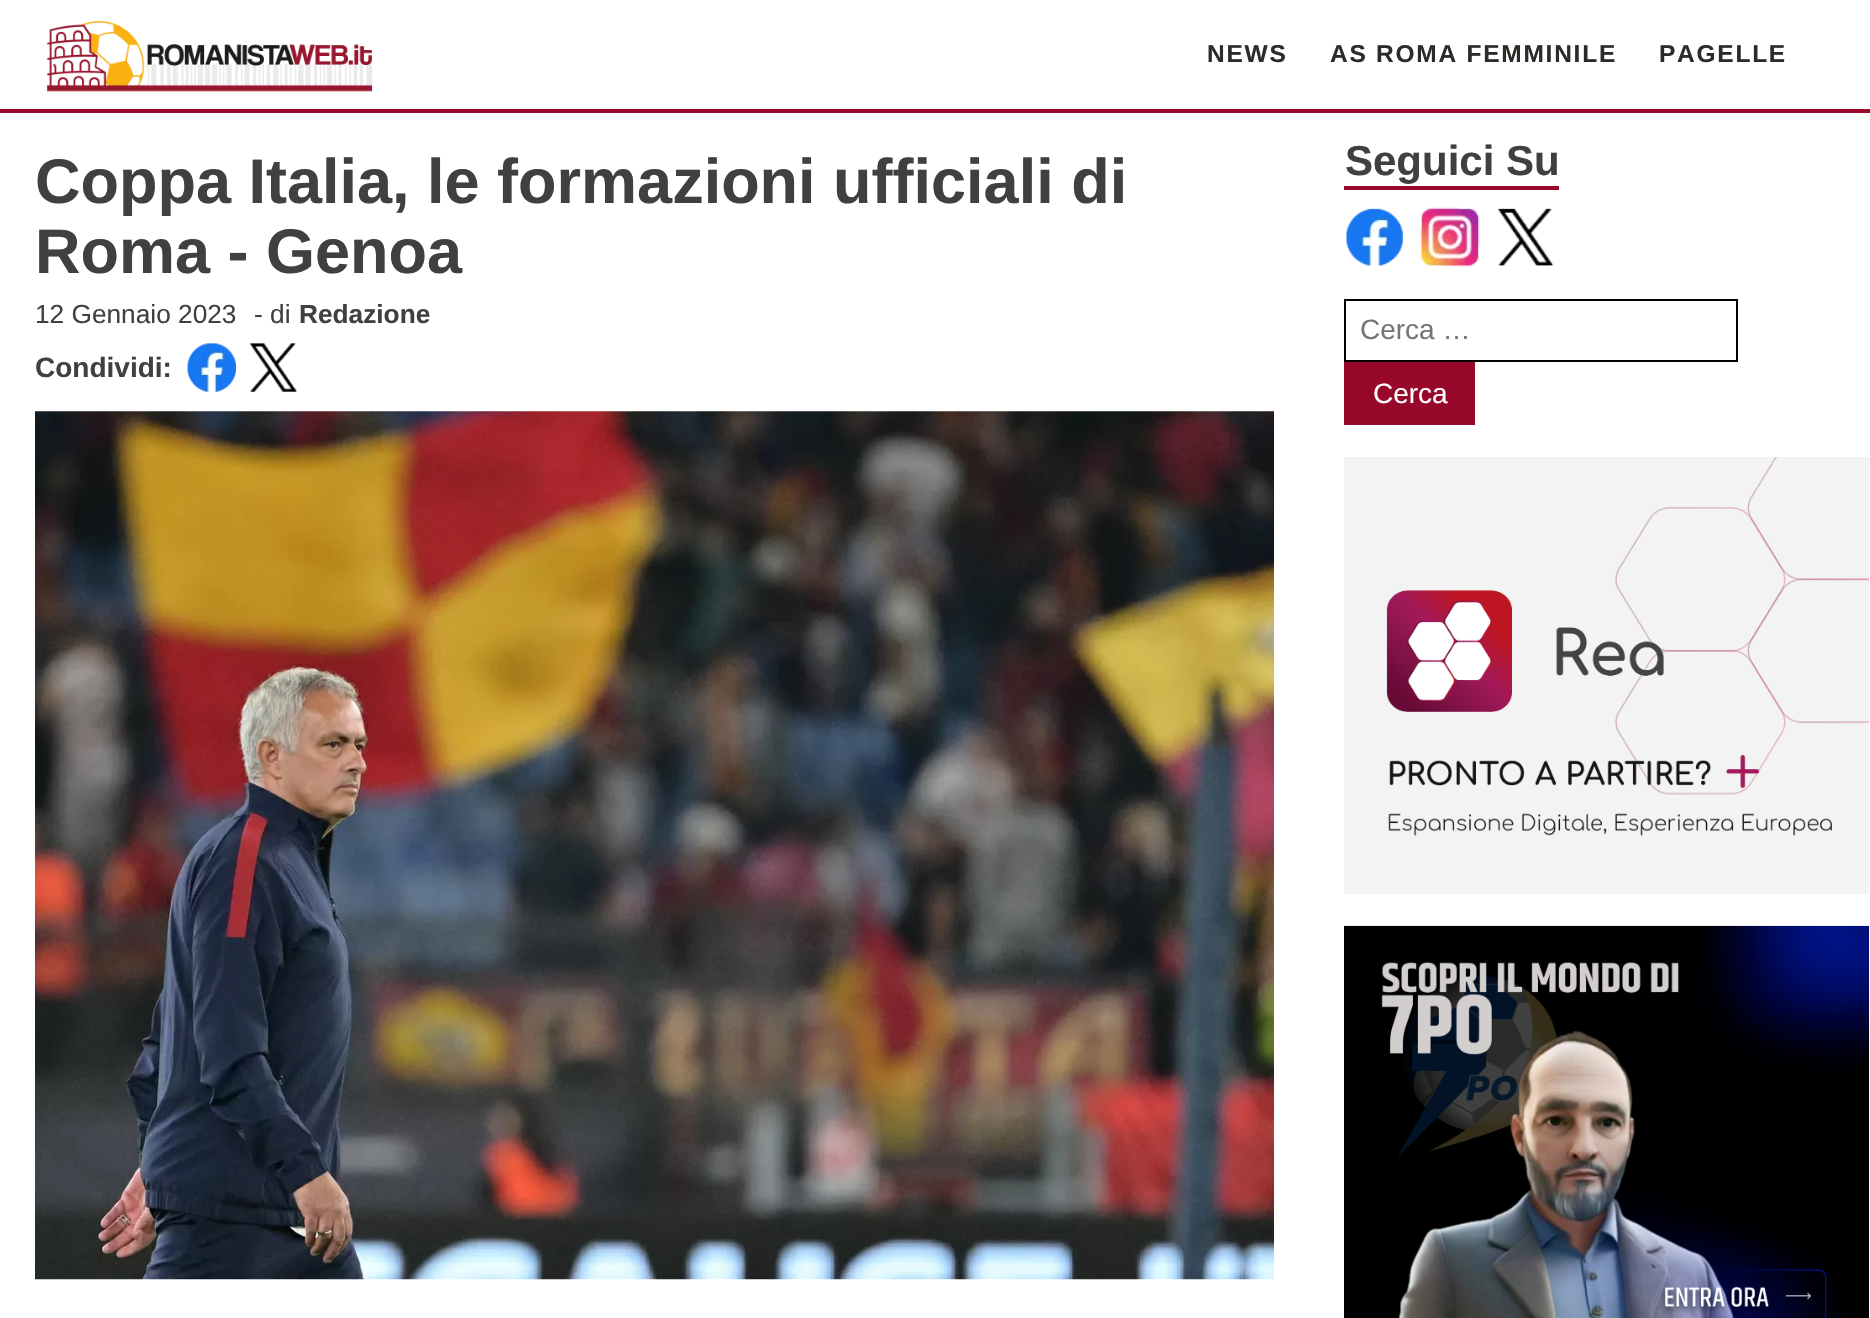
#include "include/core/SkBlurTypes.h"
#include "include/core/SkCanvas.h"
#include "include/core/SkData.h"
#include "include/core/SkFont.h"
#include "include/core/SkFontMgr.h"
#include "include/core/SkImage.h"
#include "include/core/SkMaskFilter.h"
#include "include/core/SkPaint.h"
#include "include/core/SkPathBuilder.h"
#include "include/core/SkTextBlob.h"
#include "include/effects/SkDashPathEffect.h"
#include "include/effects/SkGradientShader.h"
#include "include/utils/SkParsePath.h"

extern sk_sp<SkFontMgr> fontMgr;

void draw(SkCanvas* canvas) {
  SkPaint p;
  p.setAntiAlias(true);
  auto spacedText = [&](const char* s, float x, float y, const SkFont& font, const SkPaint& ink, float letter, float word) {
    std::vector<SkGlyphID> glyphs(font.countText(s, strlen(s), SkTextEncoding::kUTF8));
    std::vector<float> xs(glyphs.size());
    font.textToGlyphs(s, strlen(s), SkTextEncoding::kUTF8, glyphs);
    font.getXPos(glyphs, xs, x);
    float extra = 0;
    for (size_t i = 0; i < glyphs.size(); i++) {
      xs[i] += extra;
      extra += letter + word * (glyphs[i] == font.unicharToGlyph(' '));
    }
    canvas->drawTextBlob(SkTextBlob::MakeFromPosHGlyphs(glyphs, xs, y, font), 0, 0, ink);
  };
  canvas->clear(SK_ColorWHITE);
  p.setColor(SkColorSetRGB(152, 8, 43));
  canvas->drawRect(SkRect::MakeLTRB(0, 109, 1870, 113), p);
  canvas->drawImageRect(SkImages::DeferredFromEncodedData(SkData::MakeFromFileName("images/1.png")), SkRect::MakeLTRB(47, 21, 373, 92), SkSamplingOptions());
  canvas->drawImageRect(SkImages::DeferredFromEncodedData(SkData::MakeFromFileName("images/2.png")), SkRect::MakeLTRB(187, 343, 236, 392), SkSamplingOptions());
  canvas->drawImageRect(SkImages::DeferredFromEncodedData(SkData::MakeFromFileName("images/3.png")), SkRect::MakeLTRB(249, 343, 298, 392), SkSamplingOptions());
  canvas->drawImageRect(SkImages::DeferredFromEncodedData(SkData::MakeFromFileName("images/4.png")), SkRect::MakeLTRB(35, 411, 1274, 1280), SkSamplingOptions());
  canvas->drawRect(SkRect::MakeLTRB(1344, 186, 1559, 190), p);
  canvas->drawImageRect(SkImages::DeferredFromEncodedData(SkData::MakeFromFileName("images/5.png")), SkRect::MakeLTRB(1346, 208, 1403, 266), SkSamplingOptions());
  canvas->drawImageRect(SkImages::DeferredFromEncodedData(SkData::MakeFromFileName("images/6.png")), SkRect::MakeLTRB(1420, 207, 1480, 267), SkSamplingOptions());
  canvas->drawImageRect(SkImages::DeferredFromEncodedData(SkData::MakeFromFileName("images/7.png")), SkRect::MakeLTRB(1498, 208, 1554, 266), SkSamplingOptions());
  p.setStyle(SkPaint::kStroke_Style);
  p.setStrokeWidth(2);
  p.setColor(SK_ColorBLACK);
  canvas->drawRect(SkRect::MakeLTRB(1345, 300, 1737, 361), p);
  p.setStyle(SkPaint::kFill_Style);
  p.setColor(SkColorSetRGB(152, 8, 43));
  canvas->drawRect(SkRect::MakeLTRB(1344, 362, 1475, 425), p);
  canvas->drawImageRect(SkImages::DeferredFromEncodedData(SkData::MakeFromFileName("images/8.png")), SkRect::MakeLTRB(1344, 457, 1869, 894), SkSamplingOptions());
  canvas->drawImageRect(SkImages::DeferredFromEncodedData(SkData::MakeFromFileName("images/9.png")), SkRect::MakeLTRB(1344, 925, 1869, 1318), SkSamplingOptions());
  SkFont font1(fontMgr->matchFamilyStyle("Liberation Sans", SkFontStyle::Bold()), 24.5f);
  font1.setSubpixel(true);
  p.setColor(SkColorSetRGB(43, 44, 39));
  spacedText("NEWS", 1207, 62, font1, p, 1.75f, 0);
  spacedText("AS ROMA FEMMINILE", 1330, 62, font1, p, 1.75f, 0);
  spacedText("PAGELLE", 1659, 62, font1, p, 1.75f, 0);
  SkFont font2(fontMgr->matchFamilyStyle("Liberation Sans", SkFontStyle::Bold()), 63);
  font2.setSubpixel(true);
  p.setColor(SkColorSetRGB(64, 64, 64));
  canvas->drawString("Coppa Italia, le formazioni ufficiali di", 35, 203, font2, p);
  canvas->drawString("Roma - Genoa", 35, 273, font2, p);
  SkFont font3(fontMgr->matchFamilyStyle("Liberation Sans", SkFontStyle::Normal()), 26.25f);
  font3.setSubpixel(true);
  canvas->drawString("12 Gennaio 2023", 35, 323, font3, p);
  canvas->drawString("- di", 254, 323, font3, p);
  SkFont font4(fontMgr->matchFamilyStyle("Liberation Sans", SkFontStyle::Bold()), 26.25f);
  font4.setSubpixel(true);
  canvas->drawString("Redazione", 299, 323, font4, p);
  SkFont font5(fontMgr->matchFamilyStyle("Liberation Sans", SkFontStyle::Bold()), 28);
  font5.setSubpixel(true);
  canvas->drawString("Condividi:", 35, 377, font5, p);
  SkFont font6(fontMgr->matchFamilyStyle("Liberation Sans", SkFontStyle::Bold()), 42);
  font6.setSubpixel(true);
  canvas->drawString("Seguici Su", 1345, 175, font6, p);
  SkFont font7(fontMgr->matchFamilyStyle("Liberation Sans", SkFontStyle::Normal()), 28);
  font7.setSubpixel(true);
  p.setColor(SkColorSetRGB(117, 117, 117));
  canvas->drawString("Cerca …", 1360, 339, font7, p);
  p.setColor(SK_ColorWHITE);
  canvas->drawString("Cerca", 1373, 403, font7, p);
}
